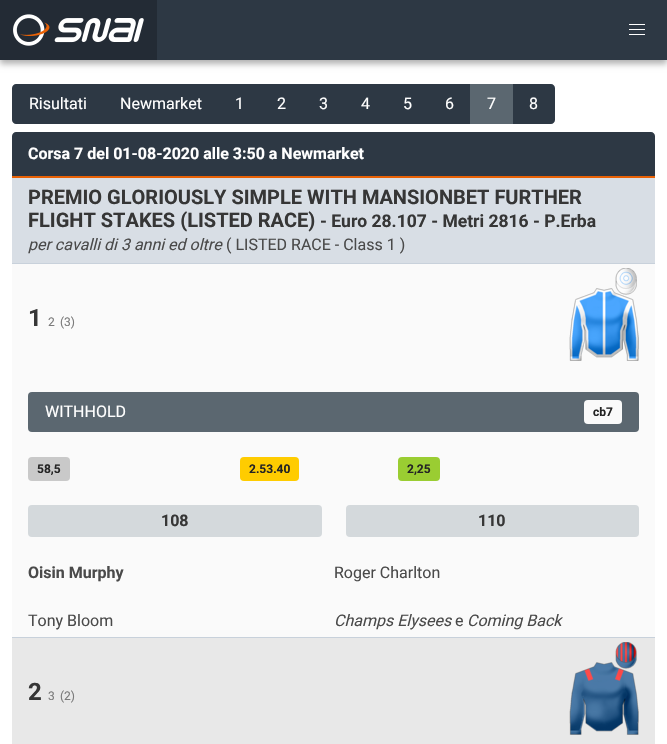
#include "include/core/SkBlurTypes.h"
#include "include/core/SkCanvas.h"
#include "include/core/SkData.h"
#include "include/core/SkFont.h"
#include "include/core/SkFontMgr.h"
#include "include/core/SkImage.h"
#include "include/core/SkMaskFilter.h"
#include "include/core/SkPaint.h"
#include "include/core/SkPathBuilder.h"
#include "include/core/SkTextBlob.h"
#include "include/effects/SkDashPathEffect.h"
#include "include/effects/SkGradientShader.h"
#include "include/utils/SkParsePath.h"

extern sk_sp<SkFontMgr> fontMgr;

void draw(SkCanvas* canvas) {
  SkPaint p;
  p.setAntiAlias(true);
  canvas->clear(SK_ColorWHITE);
  p.setColor(SkColorSetARGB(77, 0, 0, 0));
  p.setMaskFilter(SkMaskFilter::MakeBlur(kNormal_SkBlurStyle, 3));
  canvas->drawRect(SkRect::MakeLTRB(0, 4, 667, 64), p);
  p.setMaskFilter(nullptr);
  p.setColor(SkColorSetRGB(45, 56, 68));
  canvas->drawRect(SkRect::MakeLTRB(157, 0, 667, 60), p);
  p.setColor(SkColorSetRGB(35, 43, 53));
  canvas->drawRect(SkRect::MakeLTRB(0, 0, 157, 60), p);
  canvas->drawImageRect(SkImages::DeferredFromEncodedData(SkData::MakeFromFileName("images/1.png")), SkRect::MakeLTRB(13, 14, 144, 46), SkSamplingOptions());
  p.setColor(SK_ColorWHITE);
  canvas->drawRect(SkRect::MakeLTRB(629, 24, 645, 25), p);
  canvas->drawRect(SkRect::MakeLTRB(629, 29, 645, 30), p);
  canvas->drawRect(SkRect::MakeLTRB(629, 34, 645, 35), p);
  p.setColor(SkColorSetRGB(45, 56, 68));
  canvas->drawPath(SkPathBuilder().moveTo(16, 84).lineTo(104, 84).lineTo(104, 124).lineTo(16, 124).cubicTo(14, 124, 12, 122, 12, 120).lineTo(12, 88).cubicTo(12, 86, 14, 84, 16, 84).close().detach(), p);
  canvas->drawRect(SkRect::MakeLTRB(104, 84, 470, 124), p);
  canvas->drawPath(SkPathBuilder().moveTo(512, 84).lineTo(551, 84).cubicTo(553, 84, 555, 86, 555, 88).lineTo(555, 120).cubicTo(555, 122, 553, 124, 551, 124).lineTo(512, 124).close().detach(), p);
  p.setColor(SkColorSetRGB(91, 103, 112));
  canvas->drawRect(SkRect::MakeLTRB(470, 84, 513, 124), p);
  p.setColor(SkColorSetRGB(45, 56, 68));
  canvas->drawPath(SkPathBuilder().moveTo(16, 132).lineTo(651, 132).cubicTo(653, 132, 655, 134, 655, 136).lineTo(655, 178).lineTo(12, 178).lineTo(12, 136).cubicTo(12, 134, 14, 132, 16, 132).close().detach(), p);
  p.setColor(SkColorSetRGB(233, 97, 5));
  canvas->drawRect(SkRect::MakeLTRB(12, 176, 655, 178), p);
  p.setColor(SkColorSetRGB(216, 222, 229));
  canvas->drawRect(SkRect::MakeLTRB(12, 178, 655, 263), p);
  p.setColor(SkColorSetRGB(200, 209, 219));
  canvas->drawRect(SkRect::MakeLTRB(12, 263, 655, 264), p);
  p.setColor(SkColorSetRGB(250, 250, 250));
  canvas->drawRect(SkRect::MakeLTRB(12, 264, 655, 637), p);
  p.setColor(SkColorSetRGB(200, 209, 219));
  canvas->drawRect(SkRect::MakeLTRB(12, 637, 655, 638), p);
  canvas->drawImageRect(SkImages::DeferredFromEncodedData(SkData::MakeFromFileName("images/2.png")), SkRect::MakeLTRB(569, 268, 639, 361), SkSamplingOptions());
  p.setColor(SkColorSetRGB(91, 103, 112));
  canvas->drawRoundRect(SkRect::MakeLTRB(28, 392, 639, 432), 4, 4, p);
  p.setColor(SkColorSetRGB(250, 250, 250));
  canvas->drawRoundRect(SkRect::MakeLTRB(584, 400, 622, 424), 4, 4, p);
  p.setColor(SkColorSetRGB(201, 201, 201));
  canvas->drawRoundRect(SkRect::MakeLTRB(28, 457, 70, 481), 4, 4, p);
  p.setColor(SkColorSetRGB(255, 204, 0));
  canvas->drawRoundRect(SkRect::MakeLTRB(240, 457, 299, 481), 4, 4, p);
  p.setColor(SkColorSetRGB(154, 205, 50));
  canvas->drawRoundRect(SkRect::MakeLTRB(398, 457, 440, 481), 4, 4, p);
  p.setColor(SkColorSetRGB(212, 217, 220));
  canvas->drawRoundRect(SkRect::MakeLTRB(28, 505, 322, 537), 4, 4, p);
  canvas->drawRoundRect(SkRect::MakeLTRB(346, 505, 639, 537), 4, 4, p);
  p.setColor(SkColorSetRGB(232, 232, 232));
  canvas->drawRect(SkRect::MakeLTRB(12, 638, 655, 744), p);
  canvas->drawImageRect(SkImages::DeferredFromEncodedData(SkData::MakeFromFileName("images/3.png")), SkRect::MakeLTRB(569, 642, 639, 735), SkSamplingOptions());
  SkFont font1(fontMgr->matchFamilyStyle("Roboto", SkFontStyle::Normal()), 16);
  font1.setSubpixel(true);
  p.setColor(SK_ColorWHITE);
  canvas->drawString("Risultati", 29, 109, font1, p);
  canvas->drawString("Newmarket", 120, 109, font1, p);
  canvas->drawString("1", 235, 109, font1, p);
  canvas->drawString("2", 277, 109, font1, p);
  canvas->drawString("3", 319, 109, font1, p);
  canvas->drawString("4", 361, 109, font1, p);
  canvas->drawString("5", 403, 109, font1, p);
  canvas->drawString("6", 445, 109, font1, p);
  canvas->drawString("7", 487, 109, font1, p);
  canvas->drawString("8", 529, 109, font1, p);
  SkFont font2(fontMgr->matchFamilyStyle("Roboto", SkFontStyle::Bold()), 16);
  font2.setSubpixel(true);
  canvas->drawString("Corsa 7 del 01-08-2020 alle 3:50 a Newmarket", 28, 159, font2, p);
  SkFont font3(fontMgr->matchFamilyStyle("Roboto", SkFontStyle::Bold()), 20);
  font3.setSubpixel(true);
  p.setColor(SkColorSetRGB(54, 54, 54));
  canvas->drawString("PREMIO GLORIOUSLY SIMPLE WITH MANSIONBET FURTHER", 28, 204, font3, p);
  canvas->drawString("FLIGHT STAKES (LISTED RACE)", 28, 227, font3, p);
  SkFont font4(fontMgr->matchFamilyStyle("Roboto", SkFontStyle::Bold()), 17.5f);
  font4.setSubpixel(true);
  canvas->drawString("- Euro 28.107 - Metri 2816 - P.Erba", 320, 227, font4, p);
  SkFont font5(fontMgr->matchFamilyStyle("Roboto", SkFontStyle::Italic()), 16);
  font5.setSubpixel(true);
  p.setColor(SkColorSetRGB(74, 74, 74));
  canvas->drawString("per cavalli di 3 anni ed oltre", 28, 250, font5, p);
  canvas->drawString("( LISTED RACE - Class 1 )", 226, 250, font1, p);
  SkFont font6(fontMgr->matchFamilyStyle("Roboto", SkFontStyle::Bold()), 24);
  font6.setSubpixel(true);
  p.setColor(SkColorSetRGB(54, 54, 54));
  canvas->drawString("1", 28, 326, font6, p);
  SkFont font7(fontMgr->matchFamilyStyle("Roboto", SkFontStyle::Normal()), 12);
  font7.setSubpixel(true);
  p.setColor(SkColorSetRGB(122, 122, 122));
  canvas->drawString("2", 48, 326, font7, p);
  canvas->drawString("(3)", 60, 326, font7, p);
  p.setColor(SK_ColorWHITE);
  canvas->drawString("WITHHOLD", 45, 417, font1, p);
  SkFont font8(fontMgr->matchFamilyStyle("Roboto", SkFontStyle::Bold()), 12);
  font8.setSubpixel(true);
  p.setColor(SkColorSetRGB(36, 36, 36));
  canvas->drawString("cb7", 593, 416, font8, p);
  canvas->drawString("58,5", 37, 473, font8, p);
  canvas->drawString("2.53.40", 249, 473, font8, p);
  canvas->drawString("2,25", 407, 473, font8, p);
  p.setColor(SkColorSetRGB(54, 54, 54));
  canvas->drawString("108", 161, 526, font2, p);
  canvas->drawString("110", 478, 526, font2, p);
  p.setColor(SkColorSetRGB(74, 74, 74));
  canvas->drawString("Oisin Murphy", 28, 578, font2, p);
  canvas->drawString("Roger Charlton", 334, 578, font1, p);
  canvas->drawString("Tony Bloom", 28, 626, font1, p);
  canvas->drawString("Champs Elysees", 334, 626, font5, p);
  canvas->drawString("e", 455, 626, font1, p);
  canvas->drawString("Coming Back", 467, 626, font5, p);
  p.setColor(SkColorSetRGB(54, 54, 54));
  canvas->drawString("2", 28, 700, font6, p);
  p.setColor(SkColorSetRGB(122, 122, 122));
  canvas->drawString("3", 48, 700, font7, p);
  canvas->drawString("(2)", 60, 700, font7, p);
}
